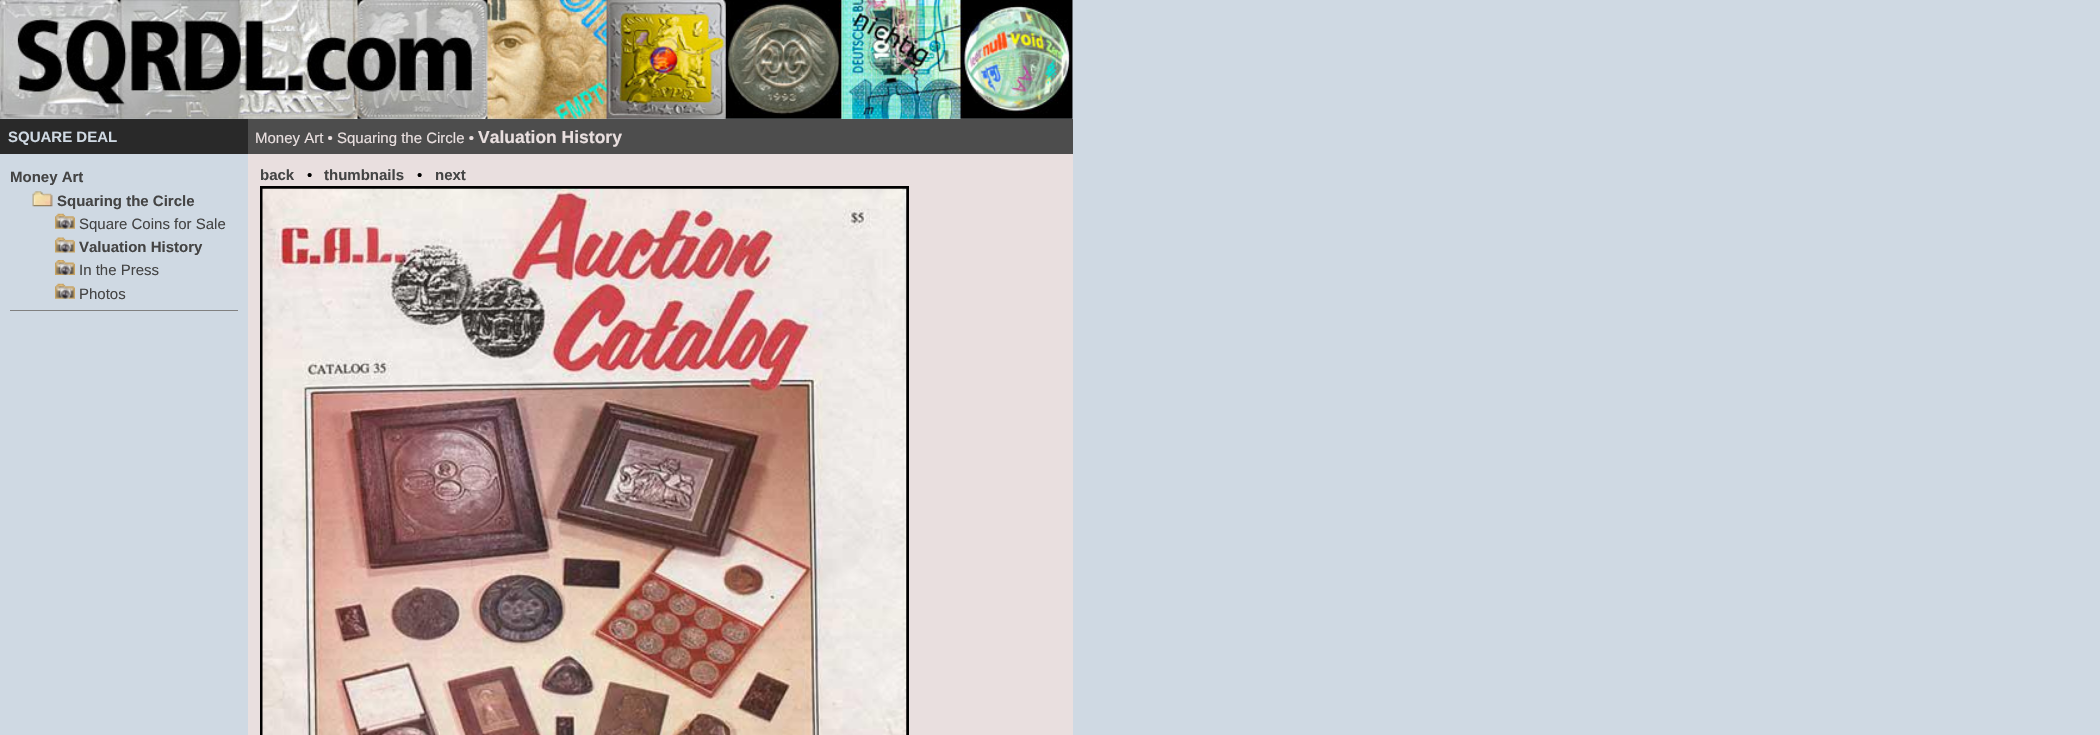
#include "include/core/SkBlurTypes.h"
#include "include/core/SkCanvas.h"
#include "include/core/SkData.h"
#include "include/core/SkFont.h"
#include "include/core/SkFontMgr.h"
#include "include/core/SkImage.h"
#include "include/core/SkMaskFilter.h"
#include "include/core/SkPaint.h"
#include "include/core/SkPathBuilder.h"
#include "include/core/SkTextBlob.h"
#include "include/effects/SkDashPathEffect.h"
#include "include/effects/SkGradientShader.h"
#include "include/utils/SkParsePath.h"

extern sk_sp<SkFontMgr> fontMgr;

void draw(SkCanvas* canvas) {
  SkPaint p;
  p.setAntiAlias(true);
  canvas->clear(SkColorSetRGB(207, 217, 227));
  canvas->drawImageRect(SkImages::DeferredFromEncodedData(SkData::MakeFromFileName("images/1.png")), SkRect::MakeLTRB(0, 0, 1073, 119), SkSamplingOptions());
  p.setColor(SkColorSetRGB(41, 41, 41));
  canvas->drawRect(SkRect::MakeLTRB(0, 119, 248, 154), p);
  canvas->drawImageRect(SkImages::DeferredFromEncodedData(SkData::MakeFromFileName("images/2.png")), SkRect::MakeLTRB(32, 191, 53, 207), SkSamplingOptions());
  canvas->drawImageRect(SkImages::DeferredFromEncodedData(SkData::MakeFromFileName("images/3.png")), SkRect::MakeLTRB(55, 213, 75, 229), SkSamplingOptions());
  canvas->drawImageRect(SkImages::DeferredFromEncodedData(SkData::MakeFromFileName("images/4.png")), SkRect::MakeLTRB(55, 237, 75, 253), SkSamplingOptions());
  canvas->drawImageRect(SkImages::DeferredFromEncodedData(SkData::MakeFromFileName("images/5.png")), SkRect::MakeLTRB(55, 260, 75, 275), SkSamplingOptions());
  canvas->drawImageRect(SkImages::DeferredFromEncodedData(SkData::MakeFromFileName("images/6.png")), SkRect::MakeLTRB(55, 283, 75, 299), SkSamplingOptions());
  p.setColor(SkColorSetRGB(128, 128, 128));
  canvas->drawRect(SkRect::MakeLTRB(10, 310, 238, 311), p);
  p.setColor(SkColorSetRGB(233, 223, 223));
  canvas->drawRect(SkRect::MakeLTRB(248, 154, 1073, 735), p);
  p.setColor(SkColorSetRGB(77, 77, 77));
  canvas->drawRect(SkRect::MakeLTRB(248, 119, 1073, 154), p);
  p.setStyle(SkPaint::kStroke_Style);
  p.setStrokeWidth(3);
  p.setColor(SK_ColorBLACK);
  canvas->drawRect(SkRect::MakeLTRB(261.5f, 187.5f, 907.5f, 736.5f), p);
  canvas->drawImageRect(SkImages::DeferredFromEncodedData(SkData::MakeFromFileName("images/7.png")), SkRect::MakeLTRB(262, 188, 907, 735), SkSamplingOptions());
  SkFont font1(fontMgr->matchFamilyStyle("Liberation Sans", SkFontStyle::Bold()), 15);
  font1.setSubpixel(true);
  p.setStyle(SkPaint::kFill_Style);
  p.setColor(SkColorSetRGB(207, 217, 227));
  canvas->drawString("SQUARE DEAL", 8, 142, font1, p);
  p.setColor(SkColorSetRGB(68, 68, 68));
  canvas->drawString("Money Art", 10, 182, font1, p);
  canvas->drawString("Squaring the Circle", 57, 206, font1, p);
  SkFont font2(fontMgr->matchFamilyStyle("Liberation Sans", SkFontStyle::Normal()), 15);
  font2.setSubpixel(true);
  canvas->drawString("Square Coins for Sale", 79, 229, font2, p);
  canvas->drawString("Valuation History", 79, 252, font1, p);
  canvas->drawString("In the Press", 79, 275, font2, p);
  canvas->drawString("Photos", 79, 299, font2, p);
  p.setColor(SkColorSetRGB(233, 223, 223));
  canvas->drawString("Money Art • Squaring the Circle •", 255, 143, font2, p);
  SkFont font3(fontMgr->matchFamilyStyle("Liberation Sans", SkFontStyle::Bold()), 17.5f);
  font3.setSubpixel(true);
  canvas->drawString("Valuation History", 478, 143, font3, p);
  p.setColor(SkColorSetRGB(68, 68, 68));
  canvas->drawString("back", 260, 180, font1, p);
  p.setColor(SK_ColorBLACK);
  canvas->drawString("•", 307, 180, font2, p);
  p.setColor(SkColorSetRGB(68, 68, 68));
  canvas->drawString("thumbnails", 324, 180, font1, p);
  p.setColor(SK_ColorBLACK);
  canvas->drawString("•", 417, 180, font2, p);
  p.setColor(SkColorSetRGB(68, 68, 68));
  canvas->drawString("next", 435, 180, font1, p);
}
